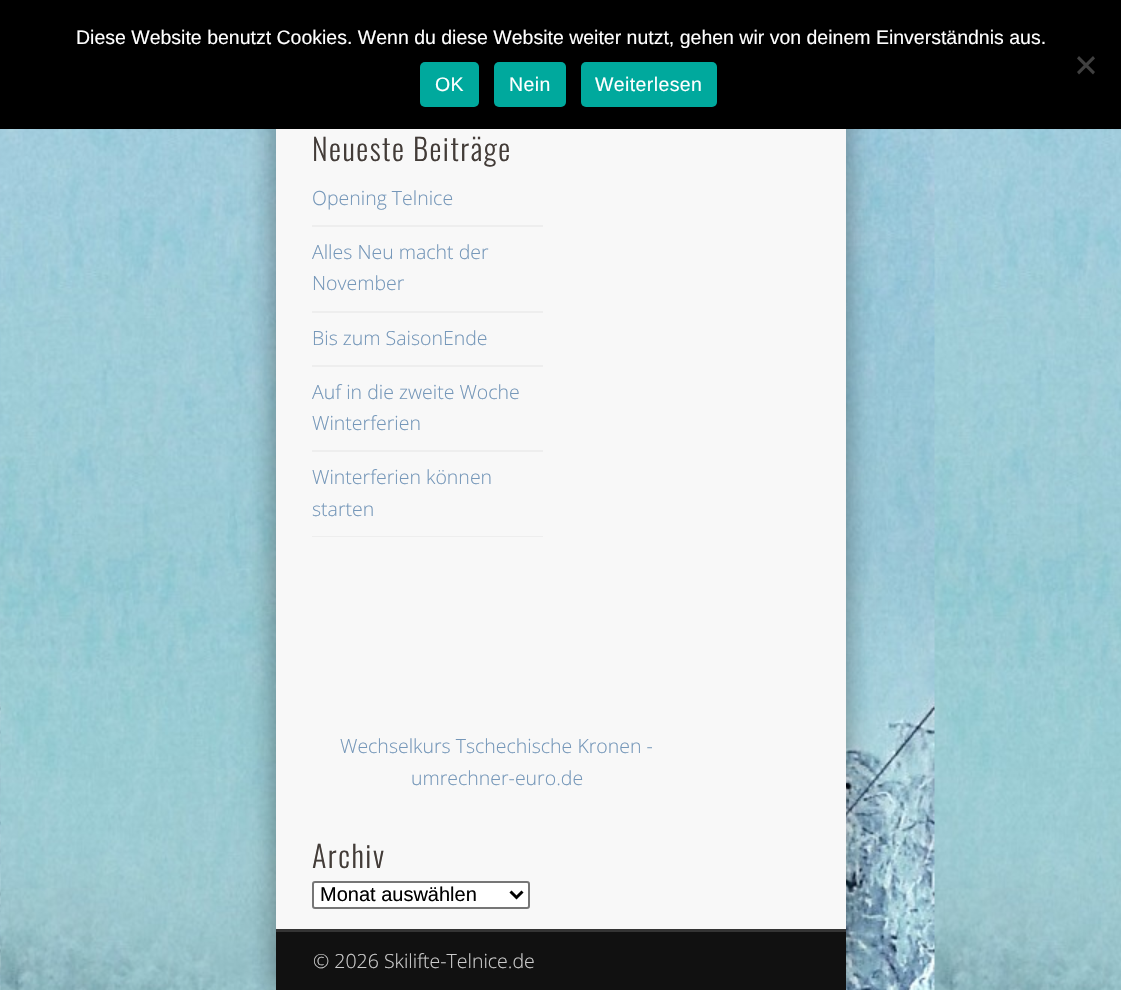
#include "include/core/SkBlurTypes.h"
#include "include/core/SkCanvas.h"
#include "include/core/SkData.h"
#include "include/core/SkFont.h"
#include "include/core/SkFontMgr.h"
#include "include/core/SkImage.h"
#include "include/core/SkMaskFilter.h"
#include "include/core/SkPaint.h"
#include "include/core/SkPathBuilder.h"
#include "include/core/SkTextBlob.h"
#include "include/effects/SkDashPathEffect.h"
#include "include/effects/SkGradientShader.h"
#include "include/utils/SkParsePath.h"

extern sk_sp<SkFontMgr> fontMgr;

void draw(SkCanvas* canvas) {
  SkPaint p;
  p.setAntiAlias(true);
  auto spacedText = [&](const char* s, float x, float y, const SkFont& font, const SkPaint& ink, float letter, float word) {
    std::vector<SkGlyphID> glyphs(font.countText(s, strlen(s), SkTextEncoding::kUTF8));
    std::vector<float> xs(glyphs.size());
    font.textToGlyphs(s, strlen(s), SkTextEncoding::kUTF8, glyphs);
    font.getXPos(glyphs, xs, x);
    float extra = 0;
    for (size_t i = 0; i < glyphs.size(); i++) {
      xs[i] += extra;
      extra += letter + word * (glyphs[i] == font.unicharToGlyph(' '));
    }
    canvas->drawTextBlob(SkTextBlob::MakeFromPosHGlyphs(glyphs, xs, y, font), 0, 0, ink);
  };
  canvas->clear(SK_ColorWHITE);
  canvas->drawImageRect(SkImages::DeferredFromEncodedData(SkData::MakeFromFileName("images/1.png")), SkRect::MakeLTRB(0, 129, 1121, 990), SkSamplingOptions());
  p.setColor(SkColorSetARGB(102, 0, 0, 0));
  p.setMaskFilter(SkMaskFilter::MakeBlur(kNormal_SkBlurStyle, 13.5f));
  canvas->drawRect(SkRect::MakeLTRB(276, -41, 846, 990), p);
  p.setMaskFilter(nullptr);
  p.setColor(SK_ColorBLACK);
  canvas->drawRect(SkRect::MakeLTRB(0, 0, 1121, 129), p);
  p.setColor(SkColorSetRGB(64, 64, 64));
  canvas->drawPath(SkPathBuilder().moveTo(1093, 56).lineTo(1095, 58.5f).lineTo(1079, 74.5f).lineTo(1077, 72).close().detach(), p);
  canvas->drawPath(SkPathBuilder().moveTo(1077, 58.5f).lineTo(1079, 56).lineTo(1095, 72).lineTo(1093, 74.5f).close().detach(), p);
  p.setColor(SkColorSetRGB(0, 169, 157));
  canvas->drawRoundRect(SkRect::MakeLTRB(420, 62, 479, 107), 5, 5, p);
  canvas->drawRoundRect(SkRect::MakeLTRB(494, 62, 566, 107), 5, 5, p);
  canvas->drawRoundRect(SkRect::MakeLTRB(581, 62, 717, 107), 5, 5, p);
  p.setColor(SkColorSetRGB(248, 248, 248));
  canvas->drawRect(SkRect::MakeLTRB(276, 129, 846, 929), p);
  p.setColor(SkColorSetRGB(238, 238, 238));
  canvas->drawRect(SkRect::MakeLTRB(312, 225, 543, 227), p);
  canvas->drawRect(SkRect::MakeLTRB(312, 311, 543, 313), p);
  canvas->drawRect(SkRect::MakeLTRB(312, 365, 543, 367), p);
  canvas->drawRect(SkRect::MakeLTRB(312, 450, 543, 452), p);
  canvas->drawRect(SkRect::MakeLTRB(312, 536, 543, 537), p);
  p.setColor(SK_ColorWHITE);
  canvas->drawRoundRect(SkRect::MakeLTRB(313, 882, 529, 908), 2, 2, p);
  p.setStyle(SkPaint::kStroke_Style);
  p.setStrokeWidth(2);
  p.setColor(SkColorSetRGB(118, 118, 118));
  canvas->drawRoundRect(SkRect::MakeLTRB(313, 882, 529, 908), 2, 2, p);
  p.setStrokeWidth(3);
  p.setColor(SK_ColorBLACK);
  canvas->drawPath(SkPathBuilder().moveTo(510.5f, 891.5f).lineTo(516.5f, 897.5f).lineTo(522.5f, 891.5f).detach(), p);
  p.setStyle(SkPaint::kFill_Style);
  p.setColor(SkColorSetRGB(52, 52, 52));
  canvas->drawRect(SkRect::MakeLTRB(276, 929, 846, 932), p);
  p.setColor(SkColorSetRGB(17, 17, 17));
  canvas->drawRect(SkRect::MakeLTRB(276, 932, 846, 990), p);
  SkFont font1(fontMgr->matchFamilyStyle("Liberation Sans", SkFontStyle::Normal()), 19.5f);
  font1.setSubpixel(true);
  p.setColor(SK_ColorWHITE);
  canvas->drawString("Diese Website benutzt Cookies. Wenn du diese Website weiter nutzt, gehen wir von deinem Einverständnis aus.", 76, 44, font1, p);
  spacedText("OK", 435, 91, font1, p, 0.4f, 0);
  spacedText("Nein", 509, 91, font1, p, 0.4f, 0);
  spacedText("Weiterlesen", 595, 91, font1, p, 0.4f, 0);
  SkFont font2(fontMgr->matchFamilyStyle("Oswald", SkFontStyle(300, SkFontStyle::kNormal_Width, SkFontStyle::kUpright_Slant)), 30);
  font2.setSubpixel(true);
  p.setColor(SkColorSetRGB(67, 60, 56));
  spacedText("Neueste Beiträge", 312, 161, font2, p, 1.5f, 0);
  SkFont font3(fontMgr->matchFamilyStyle("Open Sans", SkFontStyle(300, SkFontStyle::kNormal_Width, SkFontStyle::kUpright_Slant)), 19.5f);
  font3.setSubpixel(true);
  p.setColor(SkColorSetRGB(117, 151, 185));
  canvas->drawString("Opening Telnice", 312, 205, font3, p);
  canvas->drawString("Alles Neu macht der", 312, 259, font3, p);
  canvas->drawString("November", 312, 290, font3, p);
  canvas->drawString("Bis zum SaisonEnde", 312, 345, font3, p);
  canvas->drawString("Auf in die zweite Woche", 312, 399, font3, p);
  canvas->drawString("Winterferien", 312, 430, font3, p);
  canvas->drawString("Winterferien können", 312, 484, font3, p);
  canvas->drawString("starten", 312, 516, font3, p);
  canvas->drawString("Wechselkurs Tschechische Kronen -", 340, 753, font3, p);
  canvas->drawString("umrechner-euro.de", 411, 785, font3, p);
  p.setColor(SkColorSetRGB(67, 60, 56));
  spacedText("Archiv", 312, 868, font2, p, 1.5f, 0);
  SkFont font4(fontMgr->matchFamilyStyle("Liberation Sans", SkFontStyle::Normal()), 20);
  font4.setSubpixel(true);
  p.setColor(SK_ColorBLACK);
  canvas->drawString("Monat auswählen", 320, 901, font4, p);
  p.setColor(SkColorSetRGB(204, 204, 204));
  canvas->drawString("© 2026 Skilifte-Telnice.de", 313, 968, font3, p);
}
